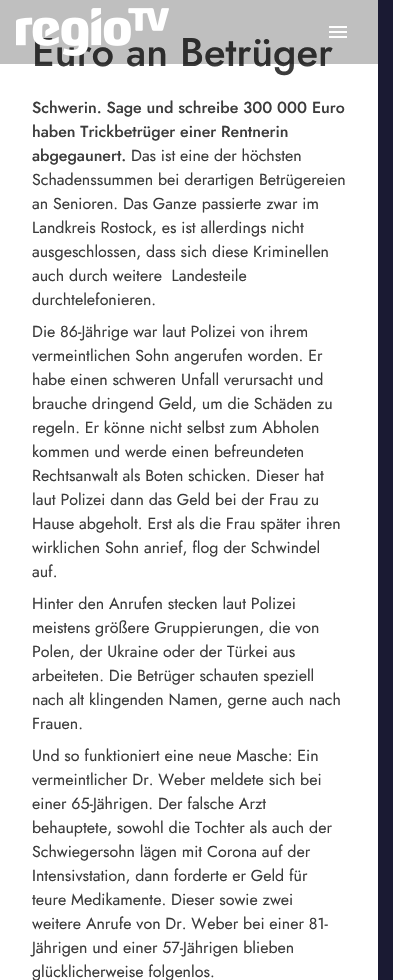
#include "include/core/SkBlurTypes.h"
#include "include/core/SkCanvas.h"
#include "include/core/SkData.h"
#include "include/core/SkFont.h"
#include "include/core/SkFontMgr.h"
#include "include/core/SkImage.h"
#include "include/core/SkMaskFilter.h"
#include "include/core/SkPaint.h"
#include "include/core/SkPathBuilder.h"
#include "include/core/SkTextBlob.h"
#include "include/effects/SkDashPathEffect.h"
#include "include/effects/SkGradientShader.h"
#include "include/utils/SkParsePath.h"

extern sk_sp<SkFontMgr> fontMgr;

void draw(SkCanvas* canvas) {
  SkPaint p;
  p.setAntiAlias(true);
  canvas->clear(SkColorSetRGB(26, 26, 51));
  p.setColor(SK_ColorWHITE);
  canvas->drawRect(SkRect::MakeLTRB(0, 0, 378, 980), p);
  SkFont font1(fontMgr->matchFamilyStyle("Jost", SkFontStyle(500, SkFontStyle::kNormal_Width, SkFontStyle::kUpright_Slant)), 40);
  font1.setSubpixel(true);
  p.setColor(SkColorSetRGB(60, 60, 60));
  canvas->drawString("Euro an Betrüger", 32, 66, font1, p);
  p.setColor(SkColorSetARGB(64, 0, 0, 0));
  canvas->drawRect(SkRect::MakeLTRB(0, 0, 378, 64), p);
  canvas->drawImageRect(SkImages::DeferredFromEncodedData(SkData::MakeFromFileName("images/2.png")), SkRect::MakeLTRB(329, 26, 347, 38), SkSamplingOptions());
  canvas->drawImageRect(SkImages::DeferredFromEncodedData(SkData::MakeFromFileName("images/1.png")), SkRect::MakeLTRB(16, 8, 169, 56), SkSamplingOptions());
  SkFont font2(fontMgr->matchFamilyStyle("Jost", SkFontStyle(500, SkFontStyle::kNormal_Width, SkFontStyle::kUpright_Slant)), 16);
  font2.setSubpixel(true);
  p.setColor(SkColorSetRGB(60, 60, 60));
  canvas->drawString("Schwerin. Sage und schreibe 300 000 Euro", 32, 113, font2, p);
  canvas->drawString("haben Trickbetrüger einer Rentnerin", 32, 137, font2, p);
  canvas->drawString("abgegaunert.", 32, 161, font2, p);
  SkFont font3(fontMgr->matchFamilyStyle("Jost", SkFontStyle::Normal()), 16);
  font3.setSubpixel(true);
  canvas->drawString("Das ist eine der höchsten", 131, 161, font3, p);
  canvas->drawString("Schadenssummen bei derartigen Betrügereien", 32, 185, font3, p);
  canvas->drawString("an Senioren. Das Ganze passierte zwar im", 32, 209, font3, p);
  canvas->drawString("Landkreis Rostock, es ist allerdings nicht", 32, 233, font3, p);
  canvas->drawString("ausgeschlossen, dass sich diese Kriminellen", 32, 257, font3, p);
  canvas->drawString("auch durch weitere  Landesteile", 32, 281, font3, p);
  canvas->drawString("durchtelefonieren.", 32, 305, font3, p);
  canvas->drawString("Die 86-Jährige war laut Polizei von ihrem", 32, 337, font3, p);
  canvas->drawString("vermeintlichen Sohn angerufen worden. Er", 32, 361, font3, p);
  canvas->drawString("habe einen schweren Unfall verursacht und", 32, 385, font3, p);
  canvas->drawString("brauche dringend Geld, um die Schäden zu", 32, 409, font3, p);
  canvas->drawString("regeln. Er könne nicht selbst zum Abholen", 32, 433, font3, p);
  canvas->drawString("kommen und werde einen befreundeten", 32, 457, font3, p);
  canvas->drawString("Rechtsanwalt als Boten schicken. Dieser hat", 32, 481, font3, p);
  canvas->drawString("laut Polizei dann das Geld bei der Frau zu", 32, 505, font3, p);
  canvas->drawString("Hause abgeholt. Erst als die Frau später ihren", 32, 529, font3, p);
  canvas->drawString("wirklichen Sohn anrief, flog der Schwindel", 32, 553, font3, p);
  canvas->drawString("auf.", 32, 577, font3, p);
  canvas->drawString("Hinter den Anrufen stecken laut Polizei", 32, 609, font3, p);
  canvas->drawString("meistens größere Gruppierungen, die von", 32, 633, font3, p);
  canvas->drawString("Polen, der Ukraine oder der Türkei aus", 32, 657, font3, p);
  canvas->drawString("arbeiteten. Die Betrüger schauten speziell", 32, 681, font3, p);
  canvas->drawString("nach alt klingenden Namen, gerne auch nach", 32, 705, font3, p);
  canvas->drawString("Frauen.", 32, 729, font3, p);
  canvas->drawString("Und so funktioniert eine neue Masche: Ein", 32, 761, font3, p);
  canvas->drawString("vermeintlicher Dr. Weber meldete sich bei", 32, 785, font3, p);
  canvas->drawString("einer 65-Jährigen. Der falsche Arzt", 32, 809, font3, p);
  canvas->drawString("behauptete, sowohl die Tochter als auch der", 32, 833, font3, p);
  canvas->drawString("Schwiegersohn lägen mit Corona auf der", 32, 857, font3, p);
  canvas->drawString("Intensivstation, dann forderte er Geld für", 32, 881, font3, p);
  canvas->drawString("teure Medikamente. Dieser sowie zwei", 32, 905, font3, p);
  canvas->drawString("weitere Anrufe von Dr. Weber bei einer 81-", 32, 929, font3, p);
  canvas->drawString("Jährigen und einer 57-Jährigen blieben", 32, 953, font3, p);
  canvas->drawString("glücklicherweise folgenlos.", 32, 977, font3, p);
}
